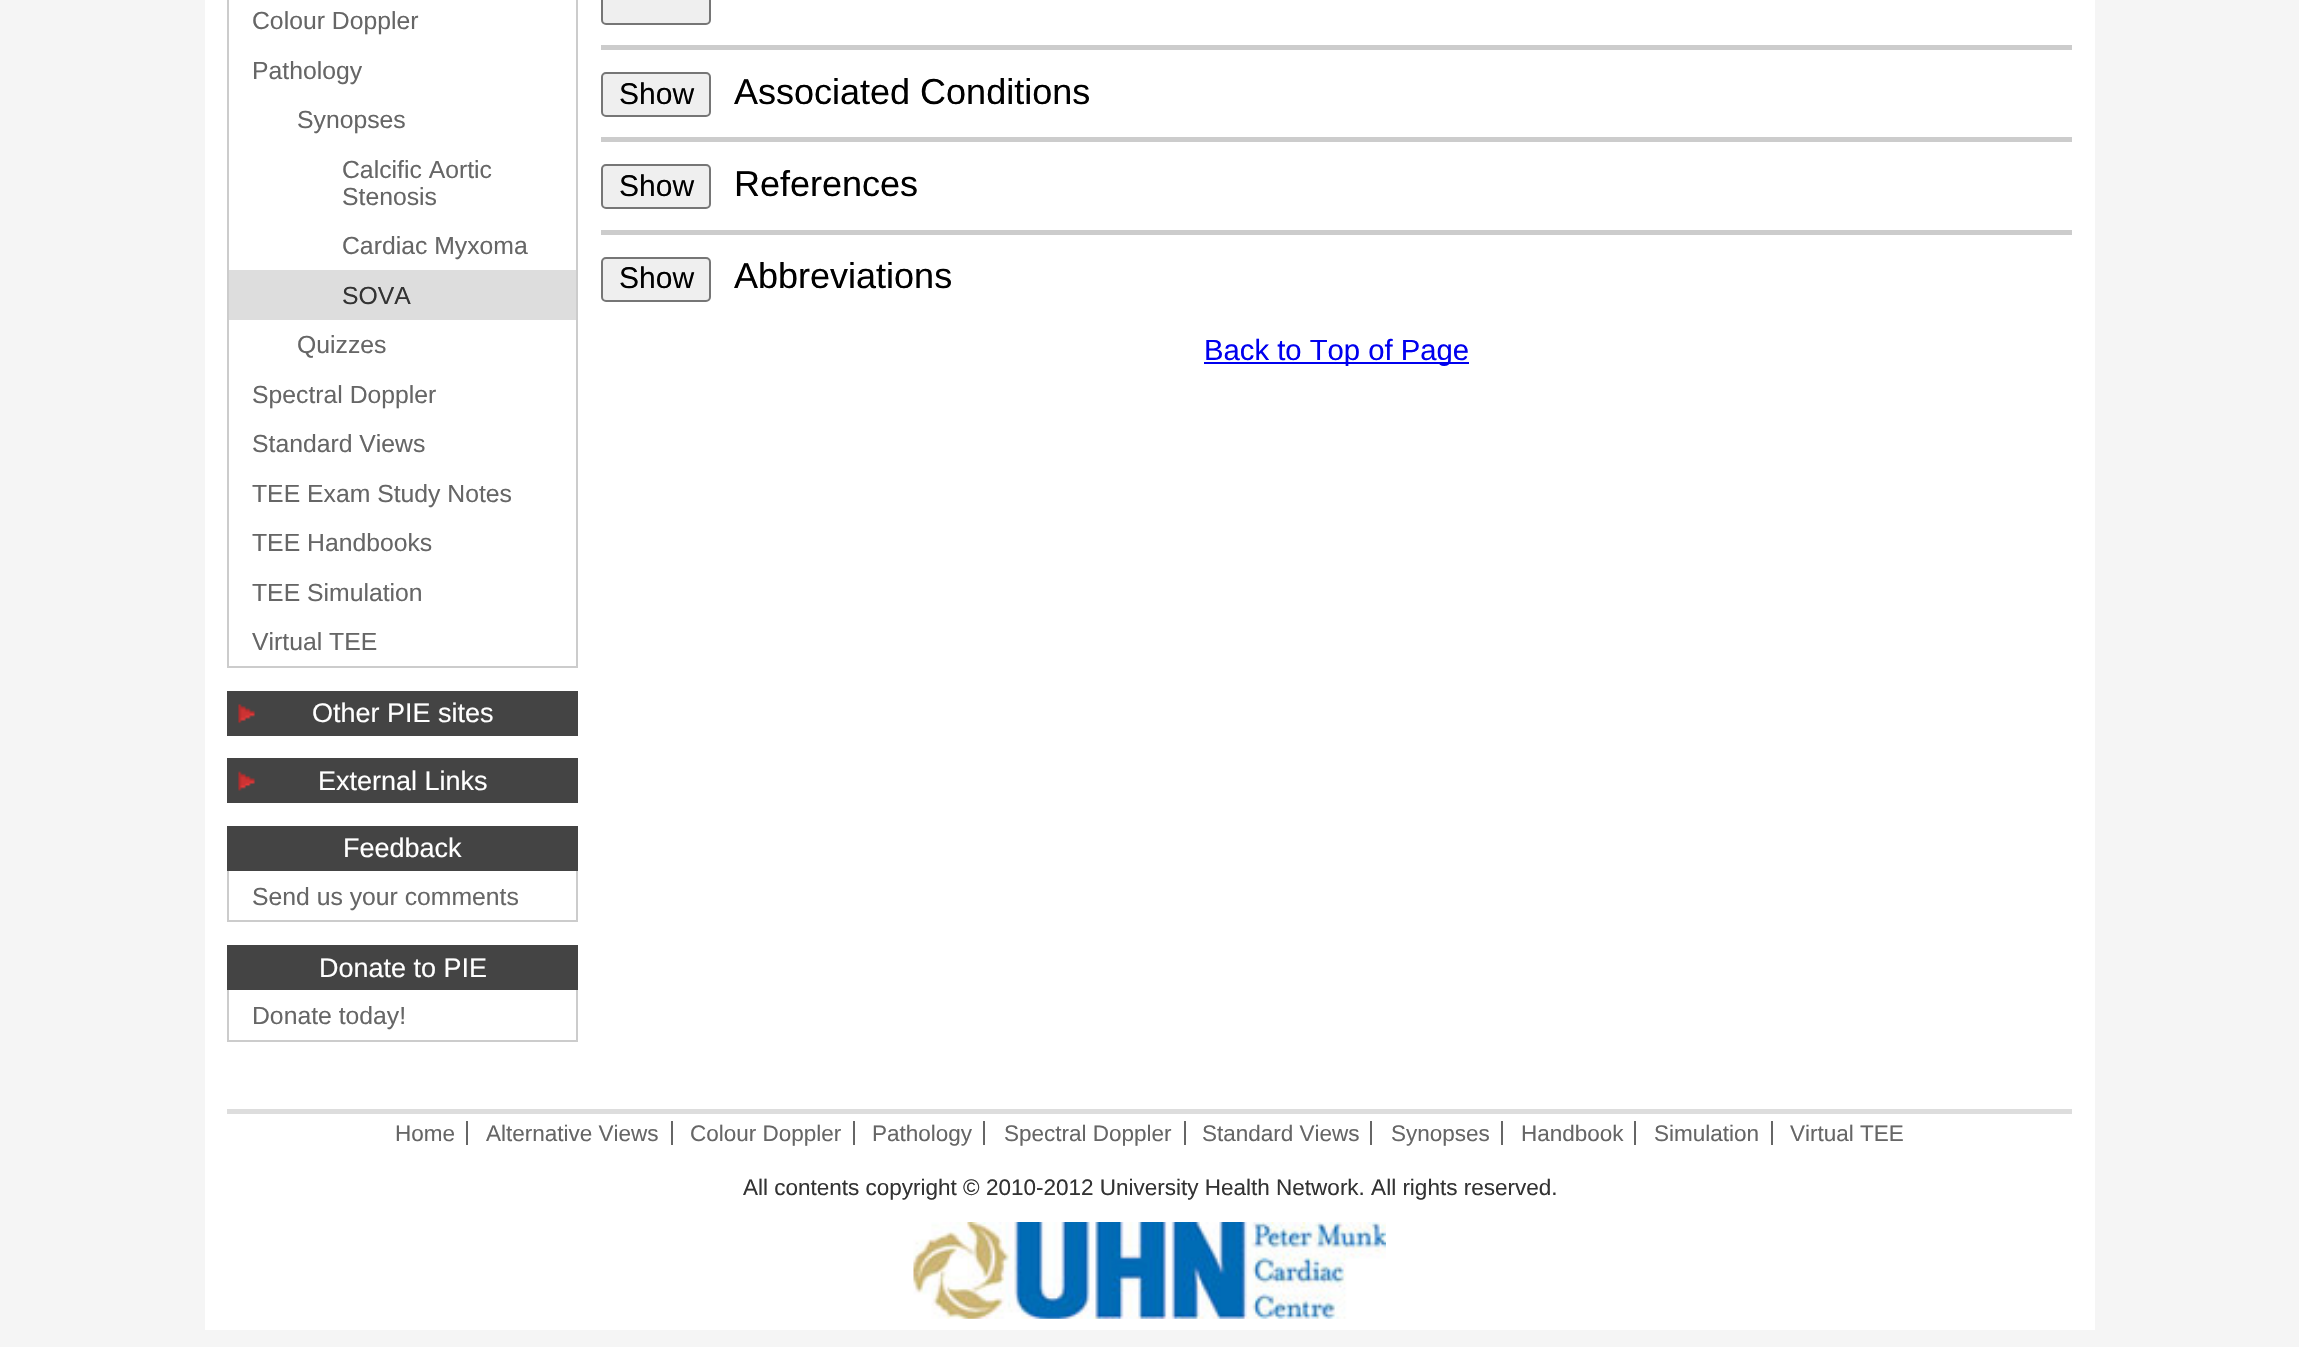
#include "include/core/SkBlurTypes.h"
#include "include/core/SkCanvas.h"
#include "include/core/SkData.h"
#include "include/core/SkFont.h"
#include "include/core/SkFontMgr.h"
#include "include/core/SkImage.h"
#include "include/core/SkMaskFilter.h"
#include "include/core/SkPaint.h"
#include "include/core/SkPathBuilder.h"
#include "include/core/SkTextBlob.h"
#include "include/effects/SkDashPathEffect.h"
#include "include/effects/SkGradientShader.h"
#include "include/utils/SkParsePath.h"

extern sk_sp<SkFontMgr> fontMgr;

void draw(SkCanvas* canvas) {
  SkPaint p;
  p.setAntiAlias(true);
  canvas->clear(SkColorSetRGB(245, 245, 245));
  p.setColor(SK_ColorWHITE);
  canvas->drawRect(SkRect::MakeLTRB(205, 0, 2095, 1330), p);
  p.setColor(SkColorSetRGB(204, 204, 204));
  canvas->drawRect(SkRect::MakeLTRB(227, 666, 578, 668), p);
  canvas->drawRect(SkRect::MakeLTRB(576, 0, 578, 666), p);
  canvas->drawRect(SkRect::MakeLTRB(227, 0, 229, 666), p);
  p.setColor(SkColorSetRGB(221, 221, 221));
  canvas->drawRect(SkRect::MakeLTRB(229, 270, 576, 320), p);
  p.setColor(SkColorSetRGB(68, 68, 68));
  canvas->drawRect(SkRect::MakeLTRB(227, 691, 578, 736), p);
  canvas->drawImageRect(SkImages::DeferredFromEncodedData(SkData::MakeFromFileName("images/1.png")), SkRect::MakeLTRB(238, 704, 255, 724), SkSamplingOptions());
  canvas->drawRect(SkRect::MakeLTRB(227, 758, 578, 803), p);
  canvas->drawImageRect(SkImages::DeferredFromEncodedData(SkData::MakeFromFileName("images/2.png")), SkRect::MakeLTRB(238, 771, 255, 791), SkSamplingOptions());
  canvas->drawRect(SkRect::MakeLTRB(227, 826, 578, 871), p);
  p.setColor(SkColorSetRGB(204, 204, 204));
  canvas->drawRect(SkRect::MakeLTRB(227, 920, 578, 922), p);
  canvas->drawRect(SkRect::MakeLTRB(576, 871, 578, 920), p);
  canvas->drawRect(SkRect::MakeLTRB(227, 871, 229, 920), p);
  p.setColor(SkColorSetRGB(68, 68, 68));
  canvas->drawRect(SkRect::MakeLTRB(227, 945, 578, 990), p);
  p.setColor(SkColorSetRGB(204, 204, 204));
  canvas->drawRect(SkRect::MakeLTRB(227, 1040, 578, 1042), p);
  canvas->drawRect(SkRect::MakeLTRB(576, 990, 578, 1040), p);
  canvas->drawRect(SkRect::MakeLTRB(227, 990, 229, 1040), p);
  p.setColor(SkColorSetRGB(239, 239, 239));
  canvas->drawRoundRect(SkRect::MakeLTRB(602, -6, 710, 24), 4, 4, p);
  p.setStyle(SkPaint::kStroke_Style);
  p.setStrokeWidth(2);
  p.setColor(SkColorSetRGB(118, 118, 118));
  canvas->drawRoundRect(SkRect::MakeLTRB(602, -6, 710, 24), 4, 4, p);
  p.setStyle(SkPaint::kFill_Style);
  p.setColor(SkColorSetRGB(204, 204, 204));
  canvas->drawRect(SkRect::MakeLTRB(601, 45, 2072, 50), p);
  p.setColor(SkColorSetRGB(239, 239, 239));
  canvas->drawRoundRect(SkRect::MakeLTRB(602, 73, 710, 116), 4, 4, p);
  p.setStyle(SkPaint::kStroke_Style);
  p.setColor(SkColorSetRGB(118, 118, 118));
  canvas->drawRoundRect(SkRect::MakeLTRB(602, 73, 710, 116), 4, 4, p);
  p.setStyle(SkPaint::kFill_Style);
  p.setColor(SkColorSetRGB(204, 204, 204));
  canvas->drawRect(SkRect::MakeLTRB(601, 137, 2072, 142), p);
  p.setColor(SkColorSetRGB(239, 239, 239));
  canvas->drawRoundRect(SkRect::MakeLTRB(602, 165, 710, 208), 4, 4, p);
  p.setStyle(SkPaint::kStroke_Style);
  p.setColor(SkColorSetRGB(118, 118, 118));
  canvas->drawRoundRect(SkRect::MakeLTRB(602, 165, 710, 208), 4, 4, p);
  p.setStyle(SkPaint::kFill_Style);
  p.setColor(SkColorSetRGB(204, 204, 204));
  canvas->drawRect(SkRect::MakeLTRB(601, 230, 2072, 235), p);
  p.setColor(SkColorSetRGB(239, 239, 239));
  canvas->drawRoundRect(SkRect::MakeLTRB(602, 258, 710, 301), 4, 4, p);
  p.setStyle(SkPaint::kStroke_Style);
  p.setColor(SkColorSetRGB(118, 118, 118));
  canvas->drawRoundRect(SkRect::MakeLTRB(602, 258, 710, 301), 4, 4, p);
  p.setStyle(SkPaint::kFill_Style);
  p.setColor(SkColorSetRGB(0, 0, 238));
  canvas->drawRect(SkRect::MakeLTRB(1204, 362, 1469, 364), p);
  p.setColor(SkColorSetRGB(221, 221, 221));
  canvas->drawRect(SkRect::MakeLTRB(227, 1109, 2072, 1114), p);
  p.setColor(SkColorSetRGB(102, 102, 102));
  canvas->drawRect(SkRect::MakeLTRB(466, 1121, 468, 1145), p);
  canvas->drawRect(SkRect::MakeLTRB(671, 1121, 673, 1145), p);
  canvas->drawRect(SkRect::MakeLTRB(853, 1121, 855, 1145), p);
  canvas->drawRect(SkRect::MakeLTRB(983, 1121, 985, 1145), p);
  canvas->drawRect(SkRect::MakeLTRB(1184, 1121, 1186, 1145), p);
  canvas->drawRect(SkRect::MakeLTRB(1370, 1121, 1372, 1145), p);
  canvas->drawRect(SkRect::MakeLTRB(1501, 1121, 1503, 1145), p);
  canvas->drawRect(SkRect::MakeLTRB(1634, 1121, 1636, 1145), p);
  canvas->drawRect(SkRect::MakeLTRB(1771, 1121, 1773, 1145), p);
  canvas->drawImageRect(SkImages::DeferredFromEncodedData(SkData::MakeFromFileName("images/3.png")), SkRect::MakeLTRB(913, 1222, 1386, 1319), SkSamplingOptions());
  SkFont font1(fontMgr->matchFamilyStyle("Liberation Sans", SkFontStyle::Normal()), 24.75f);
  font1.setSubpixel(true);
  canvas->drawString("Colour Doppler", 252, 29, font1, p);
  canvas->drawString("Pathology", 252, 79, font1, p);
  canvas->drawString("Synopses", 297, 128, font1, p);
  canvas->drawString("Calcific Aortic", 342, 178, font1, p);
  canvas->drawString("Stenosis", 342, 205, font1, p);
  canvas->drawString("Cardiac Myxoma", 342, 254, font1, p);
  p.setColor(SkColorSetRGB(51, 51, 51));
  canvas->drawString("SOVA", 342, 304, font1, p);
  p.setColor(SkColorSetRGB(102, 102, 102));
  canvas->drawString("Quizzes", 297, 353, font1, p);
  canvas->drawString("Spectral Doppler", 252, 403, font1, p);
  canvas->drawString("Standard Views", 252, 452, font1, p);
  canvas->drawString("TEE Exam Study Notes", 252, 502, font1, p);
  canvas->drawString("TEE Handbooks", 252, 551, font1, p);
  canvas->drawString("TEE Simulation", 252, 601, font1, p);
  canvas->drawString("Virtual TEE", 252, 650, font1, p);
  SkFont font2(fontMgr->matchFamilyStyle("Liberation Sans", SkFontStyle::Normal()), 27);
  font2.setSubpixel(true);
  p.setColor(SK_ColorWHITE);
  canvas->drawString("Other PIE sites", 312, 722, font2, p);
  canvas->drawString("External Links", 318, 790, font2, p);
  canvas->drawString("Feedback", 343, 857, font2, p);
  p.setColor(SkColorSetRGB(102, 102, 102));
  canvas->drawString("Send us your comments", 252, 905, font1, p);
  p.setColor(SK_ColorWHITE);
  canvas->drawString("Donate to PIE", 319, 977, font2, p);
  p.setColor(SkColorSetRGB(102, 102, 102));
  canvas->drawString("Donate today!", 252, 1024, font1, p);
  SkFont font3(fontMgr->matchFamilyStyle("Liberation Sans", SkFontStyle::Normal()), 30);
  font3.setSubpixel(true);
  p.setColor(SK_ColorBLACK);
  canvas->drawString("Show", 619, 104, font3, p);
  SkFont font4(fontMgr->matchFamilyStyle("Liberation Sans", SkFontStyle::Normal()), 36);
  font4.setSubpixel(true);
  canvas->drawString("Associated Conditions", 734, 104, font4, p);
  canvas->drawString("Show", 619, 196, font3, p);
  canvas->drawString("References", 734, 196, font4, p);
  canvas->drawString("Show", 619, 288, font3, p);
  canvas->drawString("Abbreviations", 734, 288, font4, p);
  SkFont font5(fontMgr->matchFamilyStyle("Liberation Sans", SkFontStyle::Normal()), 29.25f);
  font5.setSubpixel(true);
  p.setColor(SkColorSetRGB(0, 0, 238));
  canvas->drawString("Back to Top of Page", 1204, 360, font5, p);
  SkFont font6(fontMgr->matchFamilyStyle("Liberation Sans", SkFontStyle::Normal()), 22.5f);
  font6.setSubpixel(true);
  p.setColor(SkColorSetRGB(102, 102, 102));
  canvas->drawString("Home", 395, 1141, font6, p);
  canvas->drawString("Alternative Views", 486, 1141, font6, p);
  canvas->drawString("Colour Doppler", 690, 1141, font6, p);
  canvas->drawString("Pathology", 872, 1141, font6, p);
  canvas->drawString("Spectral Doppler", 1004, 1141, font6, p);
  canvas->drawString("Standard Views", 1202, 1141, font6, p);
  canvas->drawString("Synopses", 1391, 1141, font6, p);
  canvas->drawString("Handbook", 1521, 1141, font6, p);
  canvas->drawString("Simulation", 1654, 1141, font6, p);
  canvas->drawString("Virtual TEE", 1790, 1141, font6, p);
  p.setColor(SkColorSetRGB(51, 51, 51));
  canvas->drawString("All contents copyright © 2010-2012 University Health Network. All rights reserved.", 743, 1195, font6, p);
}
